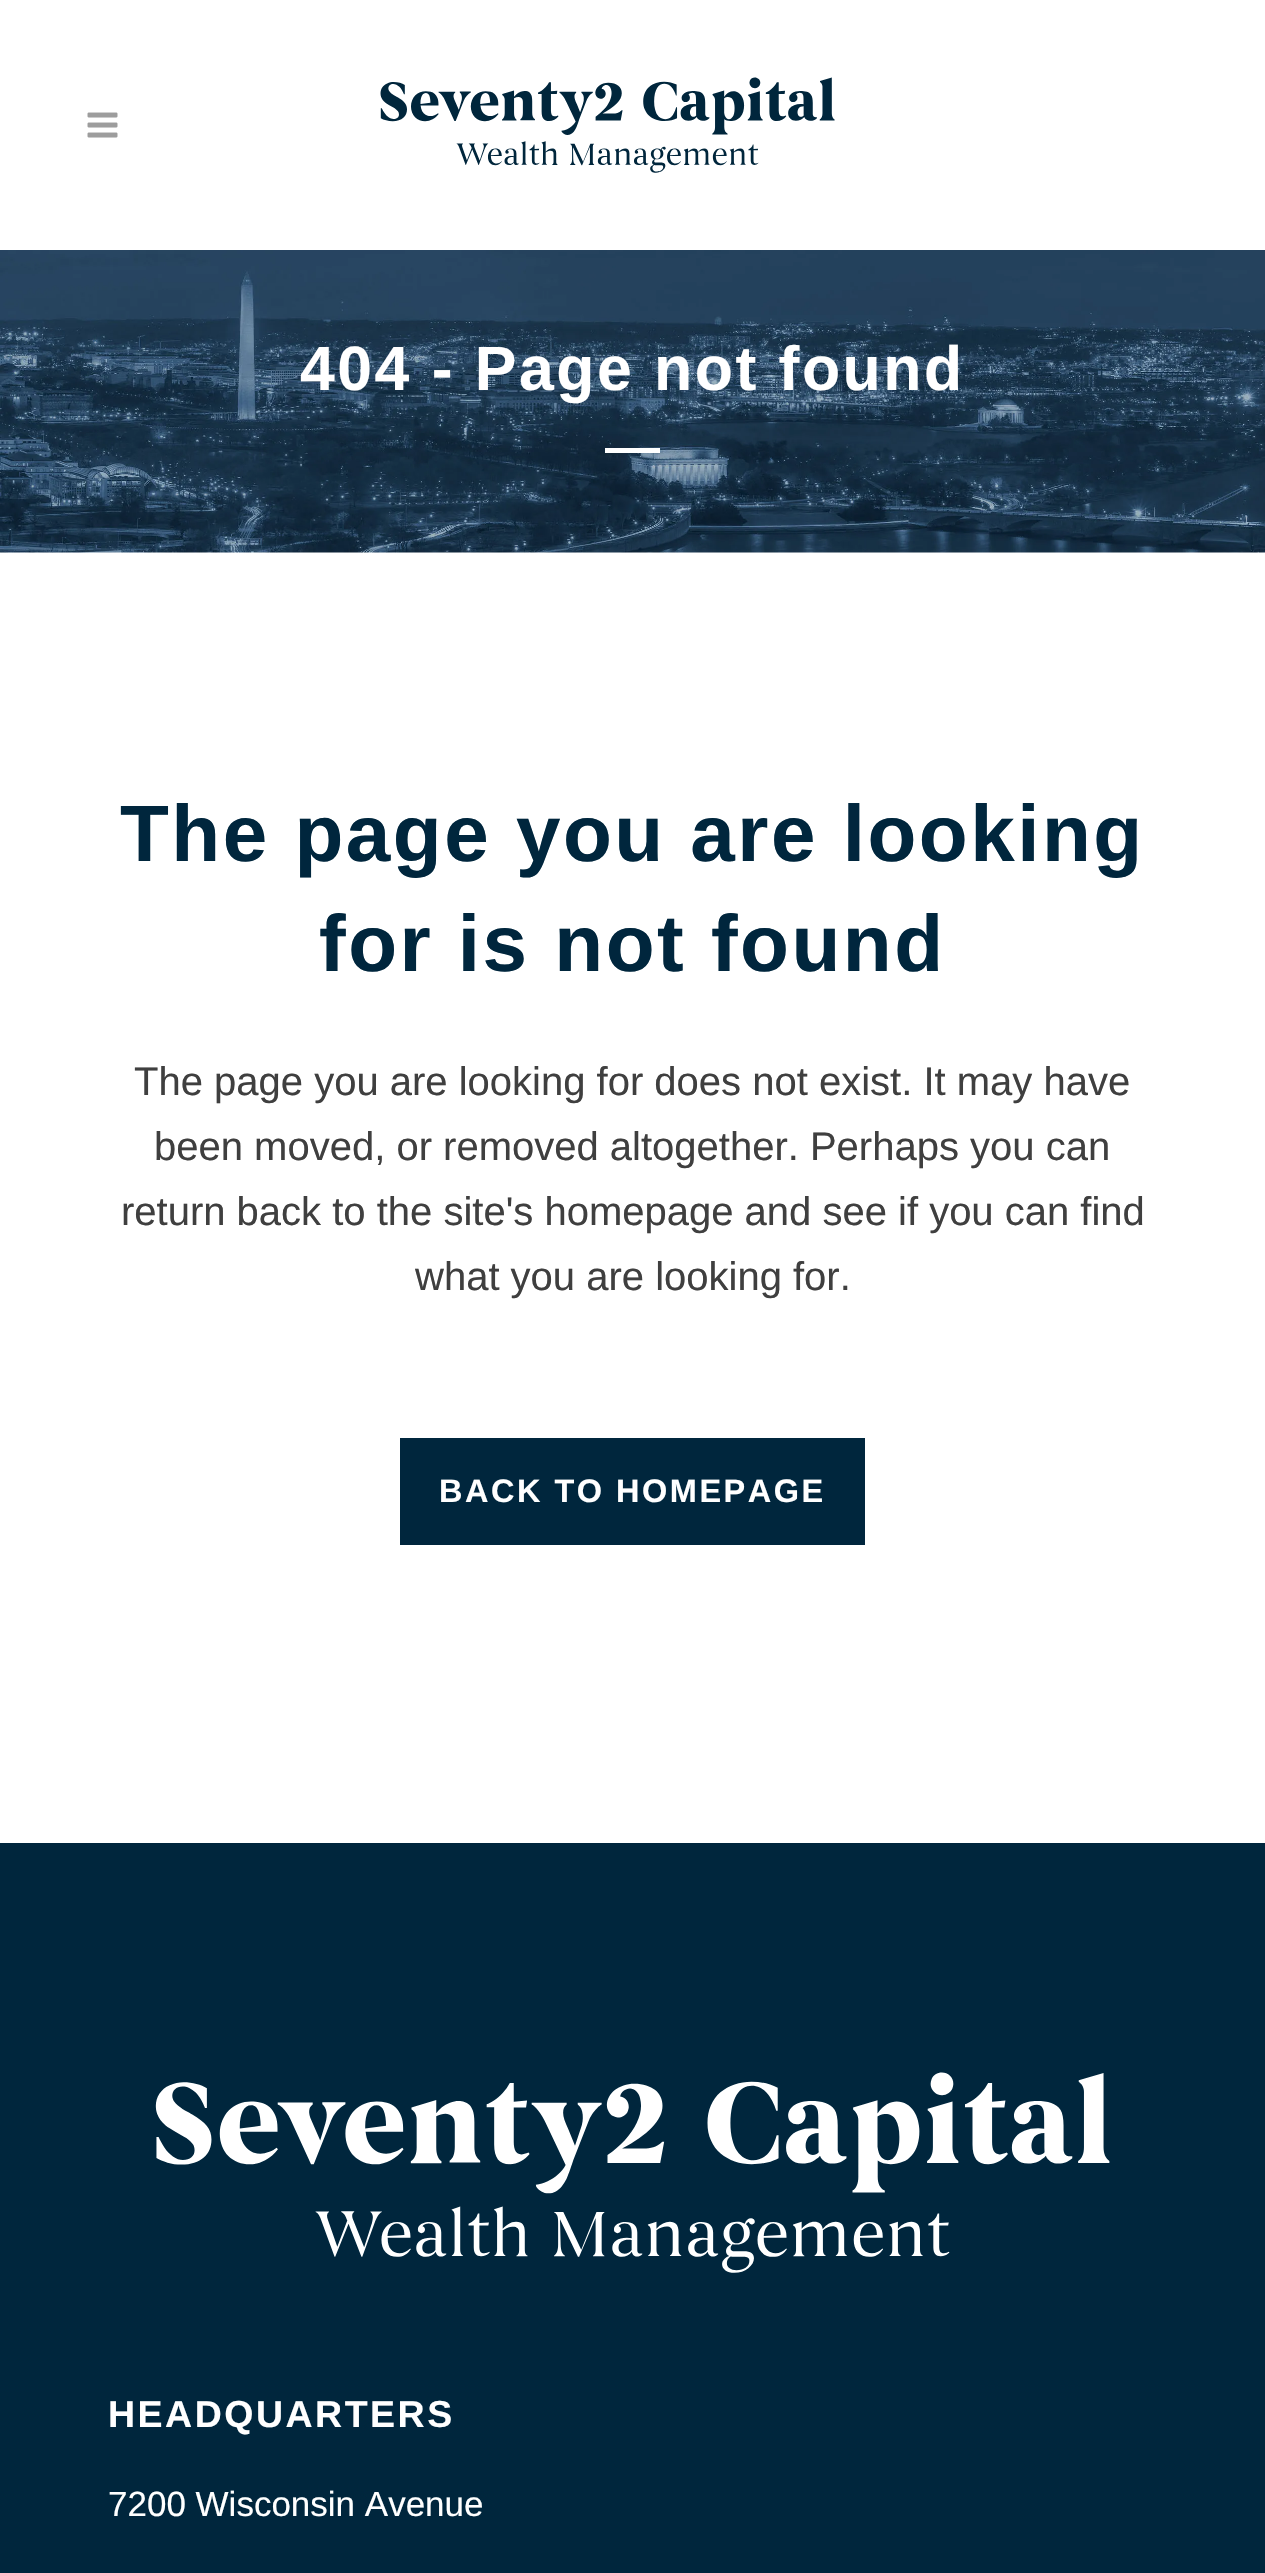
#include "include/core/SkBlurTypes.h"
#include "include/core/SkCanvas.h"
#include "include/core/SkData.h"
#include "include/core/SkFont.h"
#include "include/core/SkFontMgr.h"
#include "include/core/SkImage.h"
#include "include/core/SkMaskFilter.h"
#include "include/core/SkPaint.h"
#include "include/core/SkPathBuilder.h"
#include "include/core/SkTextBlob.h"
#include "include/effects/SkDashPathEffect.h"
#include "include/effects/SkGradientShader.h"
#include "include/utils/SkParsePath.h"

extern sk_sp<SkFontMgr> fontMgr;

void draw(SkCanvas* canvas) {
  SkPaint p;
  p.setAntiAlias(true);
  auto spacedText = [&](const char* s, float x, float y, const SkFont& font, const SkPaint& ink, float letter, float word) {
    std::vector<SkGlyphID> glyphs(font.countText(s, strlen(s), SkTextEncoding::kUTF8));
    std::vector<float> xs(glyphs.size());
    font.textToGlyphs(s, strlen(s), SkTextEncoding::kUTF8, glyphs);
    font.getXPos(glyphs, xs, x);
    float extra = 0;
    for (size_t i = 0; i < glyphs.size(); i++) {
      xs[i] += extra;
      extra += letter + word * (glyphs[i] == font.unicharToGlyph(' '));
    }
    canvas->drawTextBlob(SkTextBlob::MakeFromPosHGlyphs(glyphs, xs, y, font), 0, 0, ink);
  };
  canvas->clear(SK_ColorWHITE);
  canvas->drawImageRect(SkImages::DeferredFromEncodedData(SkData::MakeFromFileName("images/1.png")), SkRect::MakeLTRB(87, 112, 118, 138), SkSamplingOptions());
  canvas->drawImageRect(SkImages::DeferredFromEncodedData(SkData::MakeFromFileName("images/2.png")), SkRect::MakeLTRB(380, 77, 835, 173), SkSamplingOptions());
  canvas->drawImageRect(SkImages::DeferredFromEncodedData(SkData::MakeFromFileName("images/3.png")), SkRect::MakeLTRB(0, 250, 1265, 553), SkSamplingOptions());
  p.setColor(SK_ColorWHITE);
  canvas->drawRect(SkRect::MakeLTRB(605, 448, 660, 453), p);
  p.setColor(SkColorSetRGB(0, 38, 61));
  canvas->drawRect(SkRect::MakeLTRB(400, 1438, 865, 1545), p);
  canvas->drawRect(SkRect::MakeLTRB(0, 1843, 1265, 2573), p);
  canvas->drawImageRect(SkImages::DeferredFromEncodedData(SkData::MakeFromFileName("images/4.png")), SkRect::MakeLTRB(155, 2072, 1110, 2273), SkSamplingOptions());
  SkFont font1(fontMgr->matchFamilyStyle("Liberation Sans", SkFontStyle::Bold()), 62.5f);
  font1.setSubpixel(true);
  p.setColor(SK_ColorWHITE);
  spacedText("404 - Page not found", 300, 390, font1, p, 2.5f, 0);
  SkFont font2(fontMgr->matchFamilyStyle("Liberation Sans", SkFontStyle::Bold()), 80);
  font2.setSubpixel(true);
  p.setColor(SkColorSetRGB(0, 38, 61));
  spacedText("The page you are looking", 120, 861, font2, p, 2.5f, 0);
  spacedText("for is not found", 319, 971, font2, p, 2.5f, 0);
  SkFont font3(fontMgr->matchFamilyStyle("Liberation Sans", SkFontStyle::Normal()), 40);
  font3.setSubpixel(true);
  p.setColor(SkColorSetRGB(63, 63, 63));
  canvas->drawString("The page you are looking for does not exist. It may have", 134, 1095, font3, p);
  canvas->drawString("been moved, or removed altogether. Perhaps you can", 154, 1160, font3, p);
  canvas->drawString("return back to the site's homepage and see if you can find", 121, 1225, font3, p);
  canvas->drawString("what you are looking for.", 415, 1290, font3, p);
  SkFont font4(fontMgr->matchFamilyStyle("Liberation Sans", SkFontStyle::Bold()), 32.5f);
  font4.setSubpixel(true);
  p.setColor(SK_ColorWHITE);
  spacedText("BACK TO HOMEPAGE", 439, 1502, font4, p, 2.5f, 0);
  SkFont font5(fontMgr->matchFamilyStyle("Liberation Sans", SkFontStyle::Bold()), 37.5f);
  font5.setSubpixel(true);
  spacedText("HEADQUARTERS", 108, 2427, font5, p, 2.5f, 0);
  SkFont font6(fontMgr->matchFamilyStyle("Liberation Sans", SkFontStyle::Normal()), 35);
  font6.setSubpixel(true);
  canvas->drawString("7200 Wisconsin Avenue", 108, 2516, font6, p);
}
